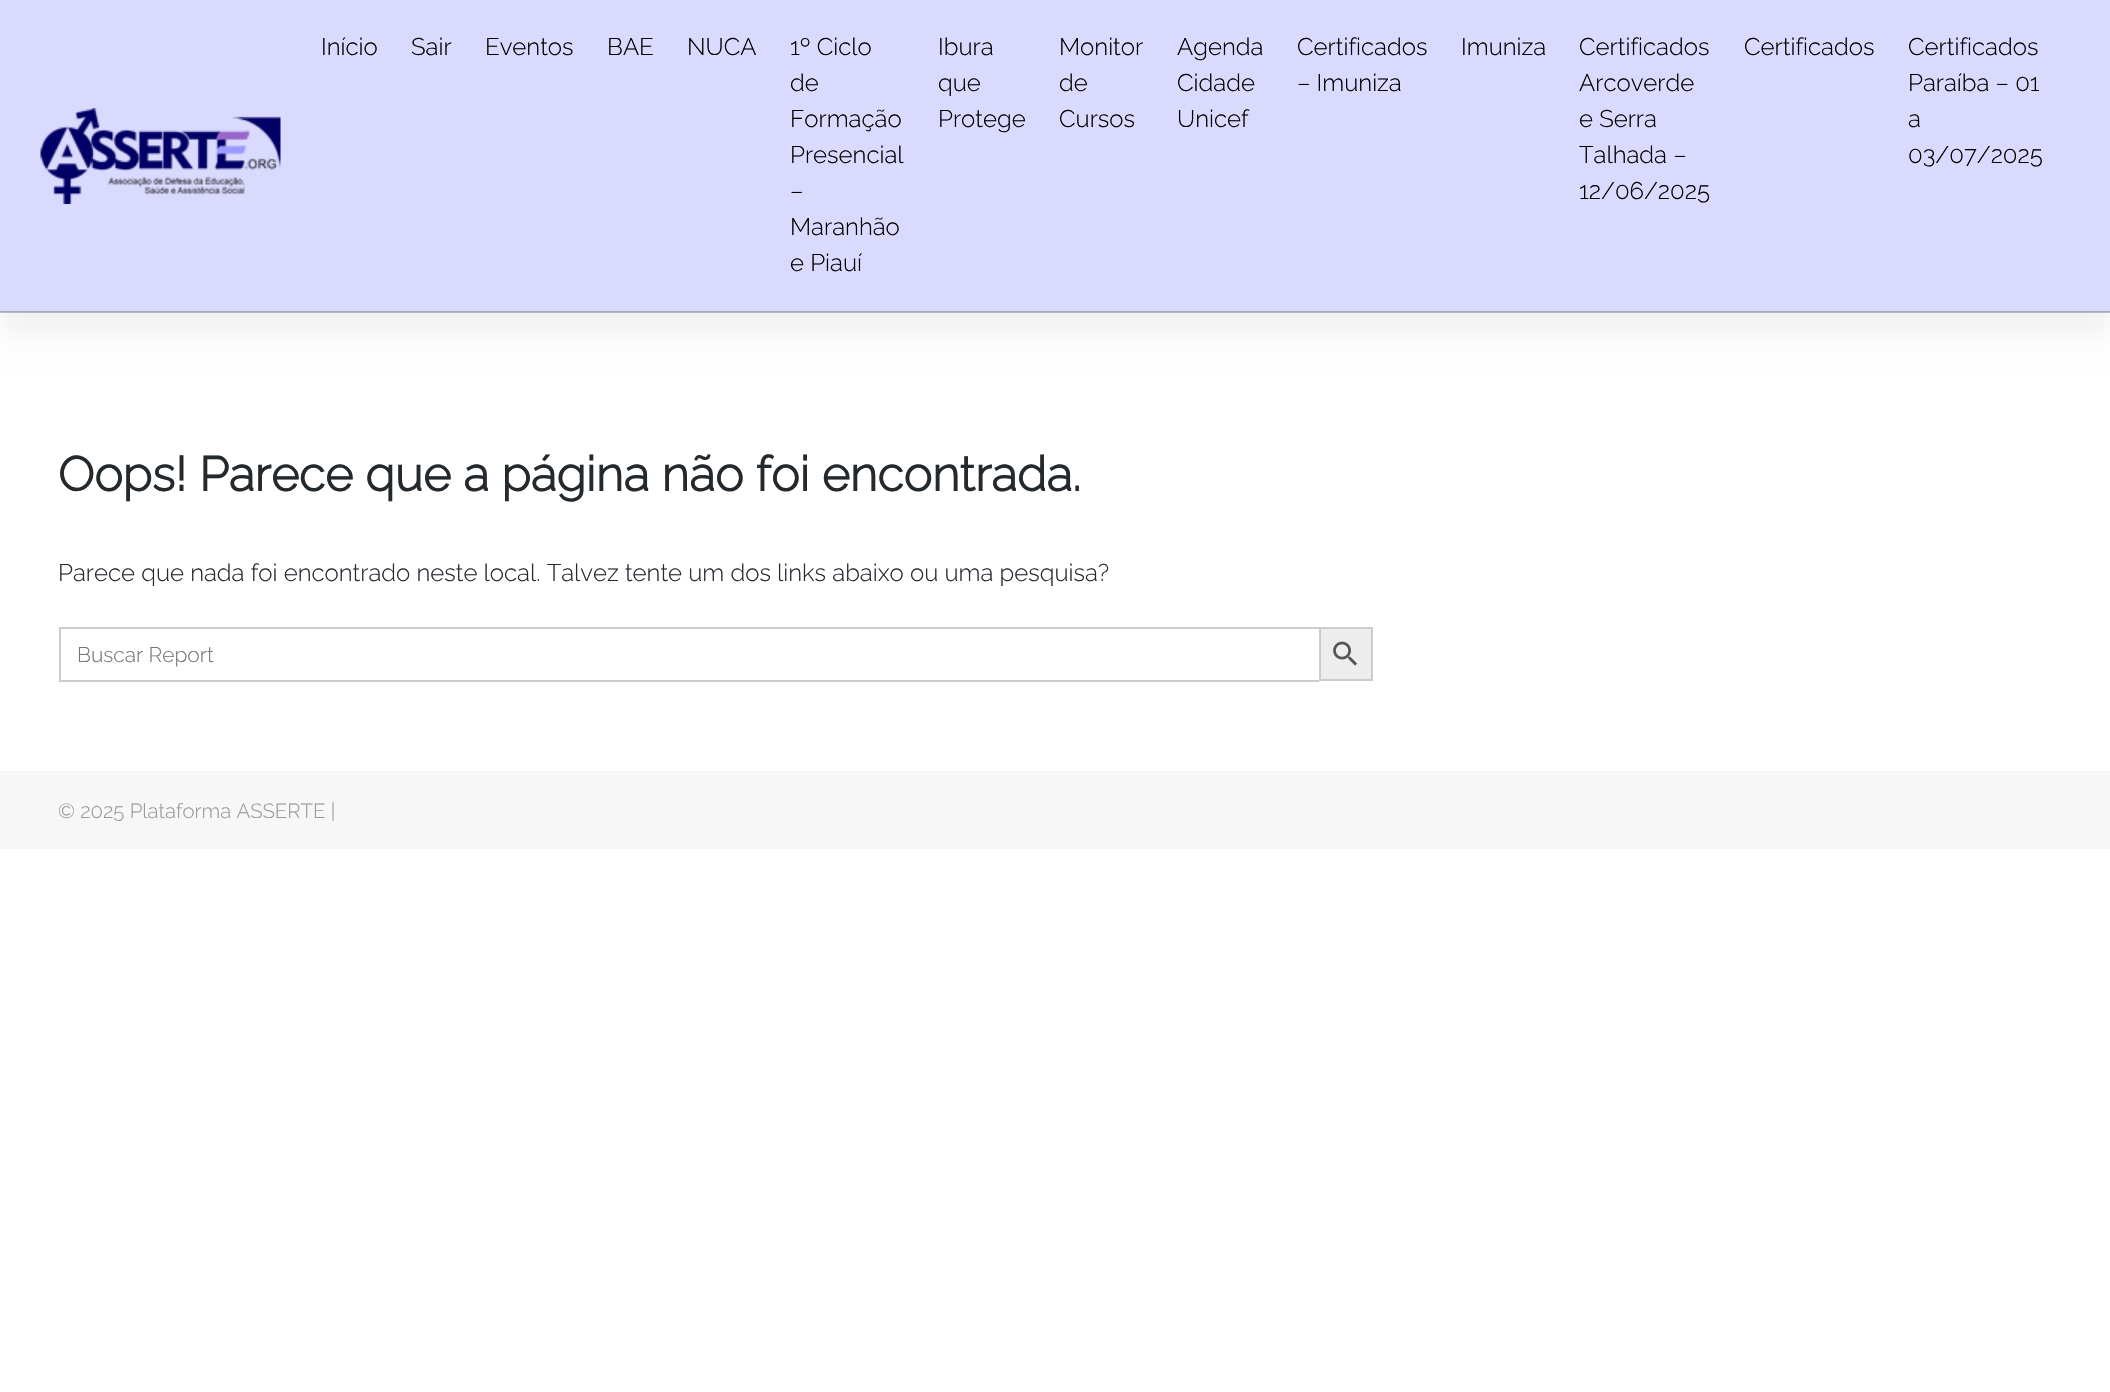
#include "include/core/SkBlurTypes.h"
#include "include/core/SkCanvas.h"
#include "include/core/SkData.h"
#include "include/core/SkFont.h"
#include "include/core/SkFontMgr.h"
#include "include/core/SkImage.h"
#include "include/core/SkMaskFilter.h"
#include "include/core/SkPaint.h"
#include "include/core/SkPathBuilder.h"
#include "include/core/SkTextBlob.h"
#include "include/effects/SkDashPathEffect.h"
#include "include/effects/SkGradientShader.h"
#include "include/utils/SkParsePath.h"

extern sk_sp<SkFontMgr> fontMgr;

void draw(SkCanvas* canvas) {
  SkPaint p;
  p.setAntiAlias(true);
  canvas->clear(SK_ColorWHITE);
  p.setColor(SkColorSetARGB(13, 0, 0, 0));
  p.setMaskFilter(SkMaskFilter::MakeBlur(kNormal_SkBlurStyle, 12));
  canvas->drawRect(SkRect::MakeLTRB(0, 24, 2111, 336), p);
  p.setMaskFilter(nullptr);
  p.setColor(SkColorSetRGB(218, 218, 255));
  canvas->drawRect(SkRect::MakeLTRB(0, 0, 2110, 312), p);
  p.setColor(SkColorSetARGB(61, 0, 0, 0));
  canvas->drawRect(SkRect::MakeLTRB(0, 311, 2110, 313), p);
  canvas->drawImageRect(SkImages::DeferredFromEncodedData(SkData::MakeFromFileName("images/1.png")), SkRect::MakeLTRB(40, 108, 281, 204), SkSamplingOptions());
  p.setColor(SkColorSetRGB(204, 204, 204));
  canvas->drawRect(SkRect::MakeLTRB(59, 627, 1319, 629), p);
  canvas->drawRect(SkRect::MakeLTRB(59, 680, 1319, 682), p);
  canvas->drawRect(SkRect::MakeLTRB(59, 627, 61, 681), p);
  p.setColor(SkColorSetRGB(237, 237, 237));
  canvas->drawRect(SkRect::MakeLTRB(1320, 628, 1372, 680), p);
  p.setStyle(SkPaint::kStroke_Style);
  p.setStrokeWidth(2);
  p.setColor(SkColorSetRGB(204, 204, 204));
  canvas->drawRect(SkRect::MakeLTRB(1320, 628, 1372, 680), p);
  canvas->drawImageRect(SkImages::DeferredFromEncodedData(SkData::MakeFromFileName("images/2.png")), SkRect::MakeLTRB(1333, 641, 1358, 666), SkSamplingOptions());
  p.setStyle(SkPaint::kFill_Style);
  p.setColor(SkColorSetRGB(247, 247, 247));
  canvas->drawRect(SkRect::MakeLTRB(0, 771, 2110, 849), p);
  SkFont font1(fontMgr->matchFamilyStyle("Raleway", SkFontStyle(100, SkFontStyle::kNormal_Width, SkFontStyle::kUpright_Slant)), 24);
  font1.setSubpixel(true);
  p.setColor(SK_ColorBLACK);
  canvas->drawString("Início", 321, 55, font1, p);
  canvas->drawString("Sair", 411, 55, font1, p);
  canvas->drawString("Eventos", 485, 55, font1, p);
  canvas->drawString("BAE", 607, 55, font1, p);
  canvas->drawString("NUCA", 687, 55, font1, p);
  canvas->drawString("1º Ciclo", 790, 55, font1, p);
  canvas->drawString("de", 790, 91, font1, p);
  canvas->drawString("Formação", 790, 127, font1, p);
  canvas->drawString("Presencial", 790, 163, font1, p);
  canvas->drawString("–", 790, 199, font1, p);
  canvas->drawString("Maranhão", 790, 235, font1, p);
  canvas->drawString("e Piauí", 790, 271, font1, p);
  canvas->drawString("Ibura", 938, 55, font1, p);
  canvas->drawString("que", 938, 91, font1, p);
  canvas->drawString("Protege", 938, 127, font1, p);
  canvas->drawString("Monitor", 1059, 55, font1, p);
  canvas->drawString("de", 1059, 91, font1, p);
  canvas->drawString("Cursos", 1059, 127, font1, p);
  canvas->drawString("Agenda", 1177, 55, font1, p);
  canvas->drawString("Cidade", 1177, 91, font1, p);
  canvas->drawString("Unicef", 1177, 127, font1, p);
  canvas->drawString("Certificados", 1297, 55, font1, p);
  canvas->drawString("– Imuniza", 1297, 91, font1, p);
  canvas->drawString("Imuniza", 1461, 55, font1, p);
  canvas->drawString("Certificados", 1579, 55, font1, p);
  canvas->drawString("Arcoverde", 1579, 91, font1, p);
  canvas->drawString("e Serra", 1579, 127, font1, p);
  canvas->drawString("Talhada –", 1579, 163, font1, p);
  canvas->drawString("12/06/2025", 1579, 199, font1, p);
  canvas->drawString("Certificados", 1744, 55, font1, p);
  canvas->drawString("Certificados", 1908, 55, font1, p);
  canvas->drawString("Paraíba – 01", 1908, 91, font1, p);
  canvas->drawString("a", 1908, 127, font1, p);
  canvas->drawString("03/07/2025", 1908, 163, font1, p);
  SkFont font2(fontMgr->matchFamilyStyle("Raleway", SkFontStyle::Bold()), 48);
  font2.setSubpixel(true);
  p.setColor(SkColorSetRGB(36, 41, 46));
  canvas->drawString("Oops! Parece que a página não foi encontrada.", 58, 491, font2, p);
  canvas->drawString("Parece que nada foi encontrado neste local. Talvez tente um dos links abaixo ou uma pesquisa?", 58, 581, font1, p);
  SkFont font3(fontMgr->matchFamilyStyle("Raleway", SkFontStyle(100, SkFontStyle::kNormal_Width, SkFontStyle::kUpright_Slant)), 21);
  font3.setSubpixel(true);
  p.setColor(SkColorSetRGB(117, 117, 117));
  canvas->drawString("Buscar Report", 77, 662, font3, p);
  SkFont font4(fontMgr->matchFamilyStyle("Raleway", SkFontStyle(100, SkFontStyle::kNormal_Width, SkFontStyle::kUpright_Slant)), 20.4f);
  font4.setSubpixel(true);
  p.setColor(SkColorSetRGB(153, 151, 156));
  canvas->drawString("© 2025 Plataforma ASSERTE |", 58, 818, font4, p);
}
